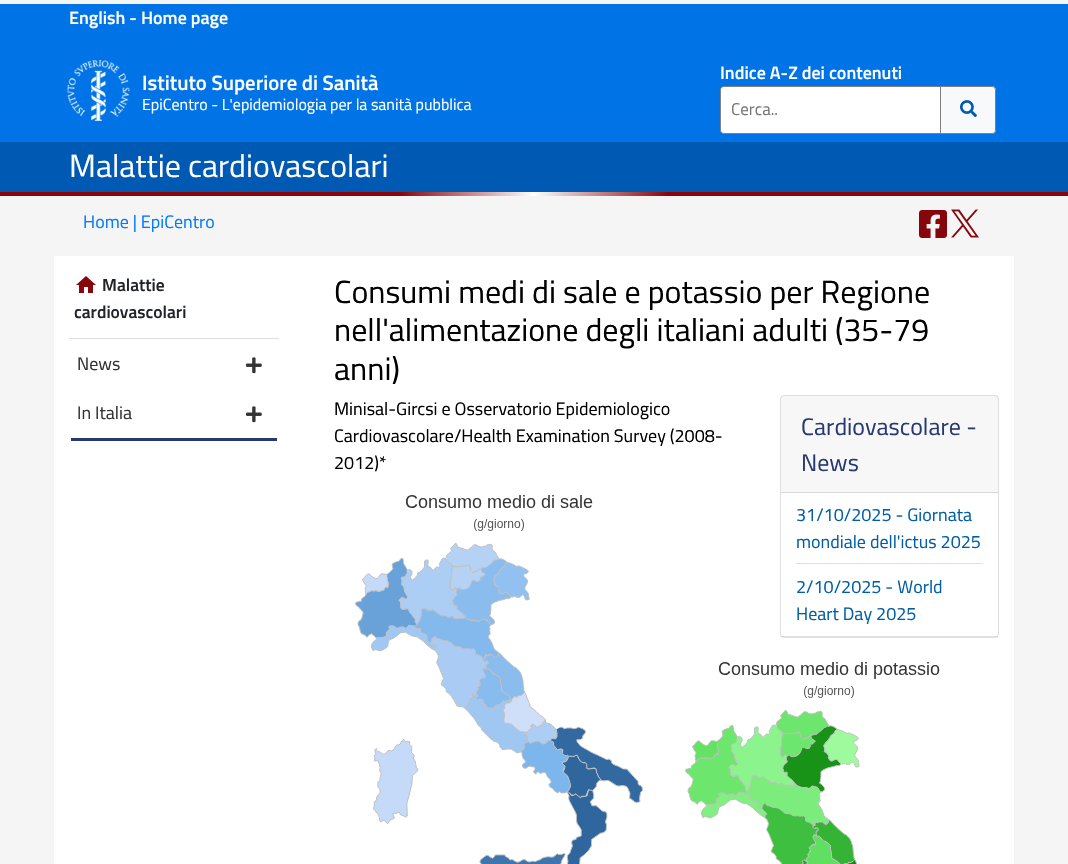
#include "include/core/SkBlurTypes.h"
#include "include/core/SkCanvas.h"
#include "include/core/SkData.h"
#include "include/core/SkFont.h"
#include "include/core/SkFontMgr.h"
#include "include/core/SkImage.h"
#include "include/core/SkMaskFilter.h"
#include "include/core/SkPaint.h"
#include "include/core/SkPathBuilder.h"
#include "include/core/SkTextBlob.h"
#include "include/effects/SkDashPathEffect.h"
#include "include/effects/SkGradientShader.h"
#include "include/utils/SkParsePath.h"

extern sk_sp<SkFontMgr> fontMgr;

void draw(SkCanvas* canvas) {
  SkPaint p;
  p.setAntiAlias(true);
  canvas->clear(SkColorSetRGB(245, 245, 245));
  p.setColor(SkColorSetRGB(0, 115, 230));
  canvas->drawRect(SkRect::MakeLTRB(0, 4, 1068, 142), p);
  canvas->drawImageRect(SkImages::DeferredFromEncodedData(SkData::MakeFromFileName("images/1.png")), SkRect::MakeLTRB(67, 60, 130, 121), SkSamplingOptions());
  p.setColor(SK_ColorWHITE);
  canvas->drawPath(SkPathBuilder().moveTo(724, 86.5f).lineTo(940.5f, 86.5f).lineTo(940.5f, 133.5f).lineTo(724, 133.5f).cubicTo(722, 133.5f, 720.5f, 132, 720.5f, 130).lineTo(720.5f, 90).cubicTo(720.5f, 88, 722, 86.5f, 724, 86.5f).close().detach(), p);
  p.setStyle(SkPaint::kStroke_Style);
  p.setStrokeWidth(1);
  p.setColor(SkColorSetRGB(128, 128, 128));
  canvas->drawPath(SkPathBuilder().moveTo(724, 86.5f).lineTo(940.5f, 86.5f).lineTo(940.5f, 133.5f).lineTo(724, 133.5f).cubicTo(722, 133.5f, 720.5f, 132, 720.5f, 130).lineTo(720.5f, 90).cubicTo(720.5f, 88, 722, 86.5f, 724, 86.5f).close().detach(), p);
  p.setStyle(SkPaint::kFill_Style);
  p.setColor(SkColorSetRGB(248, 249, 250));
  canvas->drawPath(SkPathBuilder().moveTo(941, 86).lineTo(992, 86).cubicTo(994, 86, 996, 88, 996, 90).lineTo(996, 130).cubicTo(996, 132, 994, 134, 992, 134).lineTo(941, 134).close().detach(), p);
  p.setColor(SkColorSetRGB(128, 128, 128));
  canvas->drawPath(SkPathBuilder(SkPathFillType::kEvenOdd).moveTo(941, 86).lineTo(992, 86).cubicTo(994, 86, 996, 88, 996, 90).lineTo(996, 130).cubicTo(996, 132, 994, 134, 992, 134).lineTo(941, 134).close().moveTo(941, 87).lineTo(992, 87).cubicTo(994, 87, 995, 88, 995, 90).lineTo(995, 130).cubicTo(995, 132, 994, 133, 992, 133).lineTo(941, 133).close().detach(), p);
  canvas->drawImageRect(SkImages::DeferredFromEncodedData(SkData::MakeFromFileName("images/2.png")), SkRect::MakeLTRB(960, 100, 977, 118), SkSamplingOptions());
  p.setColor(SkColorSetRGB(0, 89, 179));
  canvas->drawRect(SkRect::MakeLTRB(0, 142, 1068, 192), p);
  {
    const SkColor colors[] = {SkColorSetRGB(135, 6, 11), SK_ColorWHITE};
    const float stops[] = {0.75f, 1};
    const SkPoint ends[] = {{0, 194}, {534, 194}};
    p.setShader(SkGradientShader::MakeLinear(ends, colors, stops, 2, SkTileMode::kClamp));
    p.setAlpha(255);
  }
  canvas->drawRect(SkRect::MakeLTRB(0, 192, 534, 196), p);
  {
    const SkColor colors[] = {SkColorSetRGB(135, 6, 11), SK_ColorWHITE};
    const float stops[] = {0.75f, 1};
    const SkPoint ends[] = {{1068, 194}, {534, 194}};
    p.setShader(SkGradientShader::MakeLinear(ends, colors, stops, 2, SkTileMode::kClamp));
    p.setAlpha(255);
  }
  canvas->drawRect(SkRect::MakeLTRB(534, 192, 1068, 196), p);
  canvas->drawImageRect(SkImages::DeferredFromEncodedData(SkData::MakeFromFileName("images/3.png")), SkRect::MakeLTRB(919, 210, 947, 238), SkSamplingOptions());
  canvas->drawImageRect(SkImages::DeferredFromEncodedData(SkData::MakeFromFileName("images/4.png")), SkRect::MakeLTRB(951, 209, 979, 238), SkSamplingOptions());
  p.setShader(nullptr);
  p.setColor(SK_ColorWHITE);
  canvas->drawRect(SkRect::MakeLTRB(54, 256, 1014, 864), p);
  p.setColor(SkColorSetRGB(38, 57, 113));
  canvas->drawRect(SkRect::MakeLTRB(71, 438, 277, 441), p);
  p.setColor(SkColorSetRGB(223, 223, 223));
  canvas->drawRect(SkRect::MakeLTRB(69, 338, 279, 339), p);
  canvas->drawImageRect(SkImages::DeferredFromEncodedData(SkData::MakeFromFileName("images/5.png")), SkRect::MakeLTRB(76, 276, 96, 293), SkSamplingOptions());
  canvas->drawImageRect(SkImages::DeferredFromEncodedData(SkData::MakeFromFileName("images/6.png")), SkRect::MakeLTRB(246, 357, 262, 374), SkSamplingOptions());
  canvas->drawImageRect(SkImages::DeferredFromEncodedData(SkData::MakeFromFileName("images/6.png")), SkRect::MakeLTRB(246, 406, 262, 423), SkSamplingOptions());
  p.setStyle(SkPaint::kStroke_Style);
  canvas->drawRoundRect(SkRect::MakeLTRB(780.5f, 395.5f, 998.5f, 637.5f), 3.5f, 3.5f, p);
  p.setStyle(SkPaint::kFill_Style);
  p.setColor(SkColorSetARGB(8, 0, 0, 0));
  canvas->drawRect(SkRect::MakeLTRB(781, 396, 998, 492), p);
  p.setColor(SkColorSetRGB(216, 216, 216));
  canvas->drawRect(SkRect::MakeLTRB(781, 492, 998, 493), p);
  p.setColor(SkColorSetARGB(31, 0, 0, 0));
  canvas->drawRect(SkRect::MakeLTRB(781, 636, 998, 637), p);
  p.setColor(SkColorSetRGB(224, 224, 224));
  canvas->drawRect(SkRect::MakeLTRB(796, 563, 983, 564), p);
  canvas->drawImageRect(SkImages::DeferredFromEncodedData(SkData::MakeFromFileName("images/7.png")), SkRect::MakeLTRB(355, 495, 643, 864), SkSamplingOptions());
  canvas->drawImageRect(SkImages::DeferredFromEncodedData(SkData::MakeFromFileName("images/8.png")), SkRect::MakeLTRB(685, 662, 940, 864), SkSamplingOptions());
  SkFont font1(fontMgr->matchFamilyStyle("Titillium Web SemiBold", SkFontStyle(600, SkFontStyle::kNormal_Width, SkFontStyle::kUpright_Slant)), 18);
  font1.setSubpixel(true);
  p.setColor(SK_ColorWHITE);
  canvas->drawString("English - Home page", 69, 24, font1, p);
  SkFont font2(fontMgr->matchFamilyStyle("Titillium Web SemiBold", SkFontStyle(600, SkFontStyle::kNormal_Width, SkFontStyle::kUpright_Slant)), 20.75f);
  font2.setSubpixel(true);
  canvas->drawString("Istituto Superiore di Sanità", 142, 90, font2, p);
  SkFont font3(fontMgr->matchFamilyStyle("Titillium Web", SkFontStyle::Normal()), 16);
  font3.setSubpixel(true);
  canvas->drawString("EpiCentro - L'epidemiologia per la sanità pubblica", 142, 110, font3, p);
  canvas->drawString("Indice A-Z dei contenuti", 720, 79, font1, p);
  SkFont font4(fontMgr->matchFamilyStyle("Titillium Web", SkFontStyle::Normal()), 17);
  font4.setSubpixel(true);
  p.setColor(SkColorSetRGB(117, 117, 117));
  canvas->drawString("Cerca..", 731, 115, font4, p);
  SkFont font5(fontMgr->matchFamilyStyle("Titillium Web", SkFontStyle::Normal()), 32);
  font5.setSubpixel(true);
  p.setColor(SK_ColorWHITE);
  canvas->drawString("Malattie cardiovascolari", 69, 177, font5, p);
  SkFont font6(fontMgr->matchFamilyStyle("Titillium Web", SkFontStyle::Normal()), 18);
  font6.setSubpixel(true);
  p.setColor(SkColorSetRGB(0, 123, 255));
  canvas->drawString("Home | EpiCentro", 83, 228, font6, p);
  SkFont font7(fontMgr->matchFamilyStyle("Titillium Web SemiBold", SkFontStyle(600, SkFontStyle::kNormal_Width, SkFontStyle::kUpright_Slant)), 17.5f);
  font7.setSubpixel(true);
  p.setColor(SkColorSetRGB(33, 37, 41));
  canvas->drawString("Malattie", 102, 291, font7, p);
  canvas->drawString("cardiovascolari", 74, 318, font7, p);
  p.setColor(SkColorSetRGB(51, 51, 51));
  canvas->drawString("News", 77, 370, font6, p);
  canvas->drawString("In Italia", 77, 419, font6, p);
  p.setColor(SK_ColorBLACK);
  canvas->drawString("Consumi medi di sale e potassio per Regione", 334, 303, font5, p);
  canvas->drawString("nell'alimentazione degli italiani adulti (35-79", 334, 341, font5, p);
  canvas->drawString("anni)", 334, 380, font5, p);
  canvas->drawString("Minisal-Gircsi e Osservatorio Epidemiologico", 334, 415, font6, p);
  canvas->drawString("Cardiovascolare/Health Examination Survey (2008-", 334, 442, font6, p);
  canvas->drawString("2012)*", 334, 469, font6, p);
  SkFont font8(fontMgr->matchFamilyStyle("Titillium Web", SkFontStyle::Normal()), 24);
  font8.setSubpixel(true);
  p.setColor(SkColorSetRGB(38, 57, 113));
  canvas->drawString("Cardiovascolare -", 801, 435, font8, p);
  canvas->drawString("News", 801, 471, font8, p);
  p.setColor(SkColorSetRGB(0, 94, 168));
  canvas->drawString("31/10/2025 - Giornata", 796, 521, font6, p);
  canvas->drawString("mondiale dell'ictus 2025", 796, 548, font6, p);
  canvas->drawString("2/10/2025 - World", 796, 593, font6, p);
  canvas->drawString("Heart Day 2025", 796, 620, font6, p);
}
